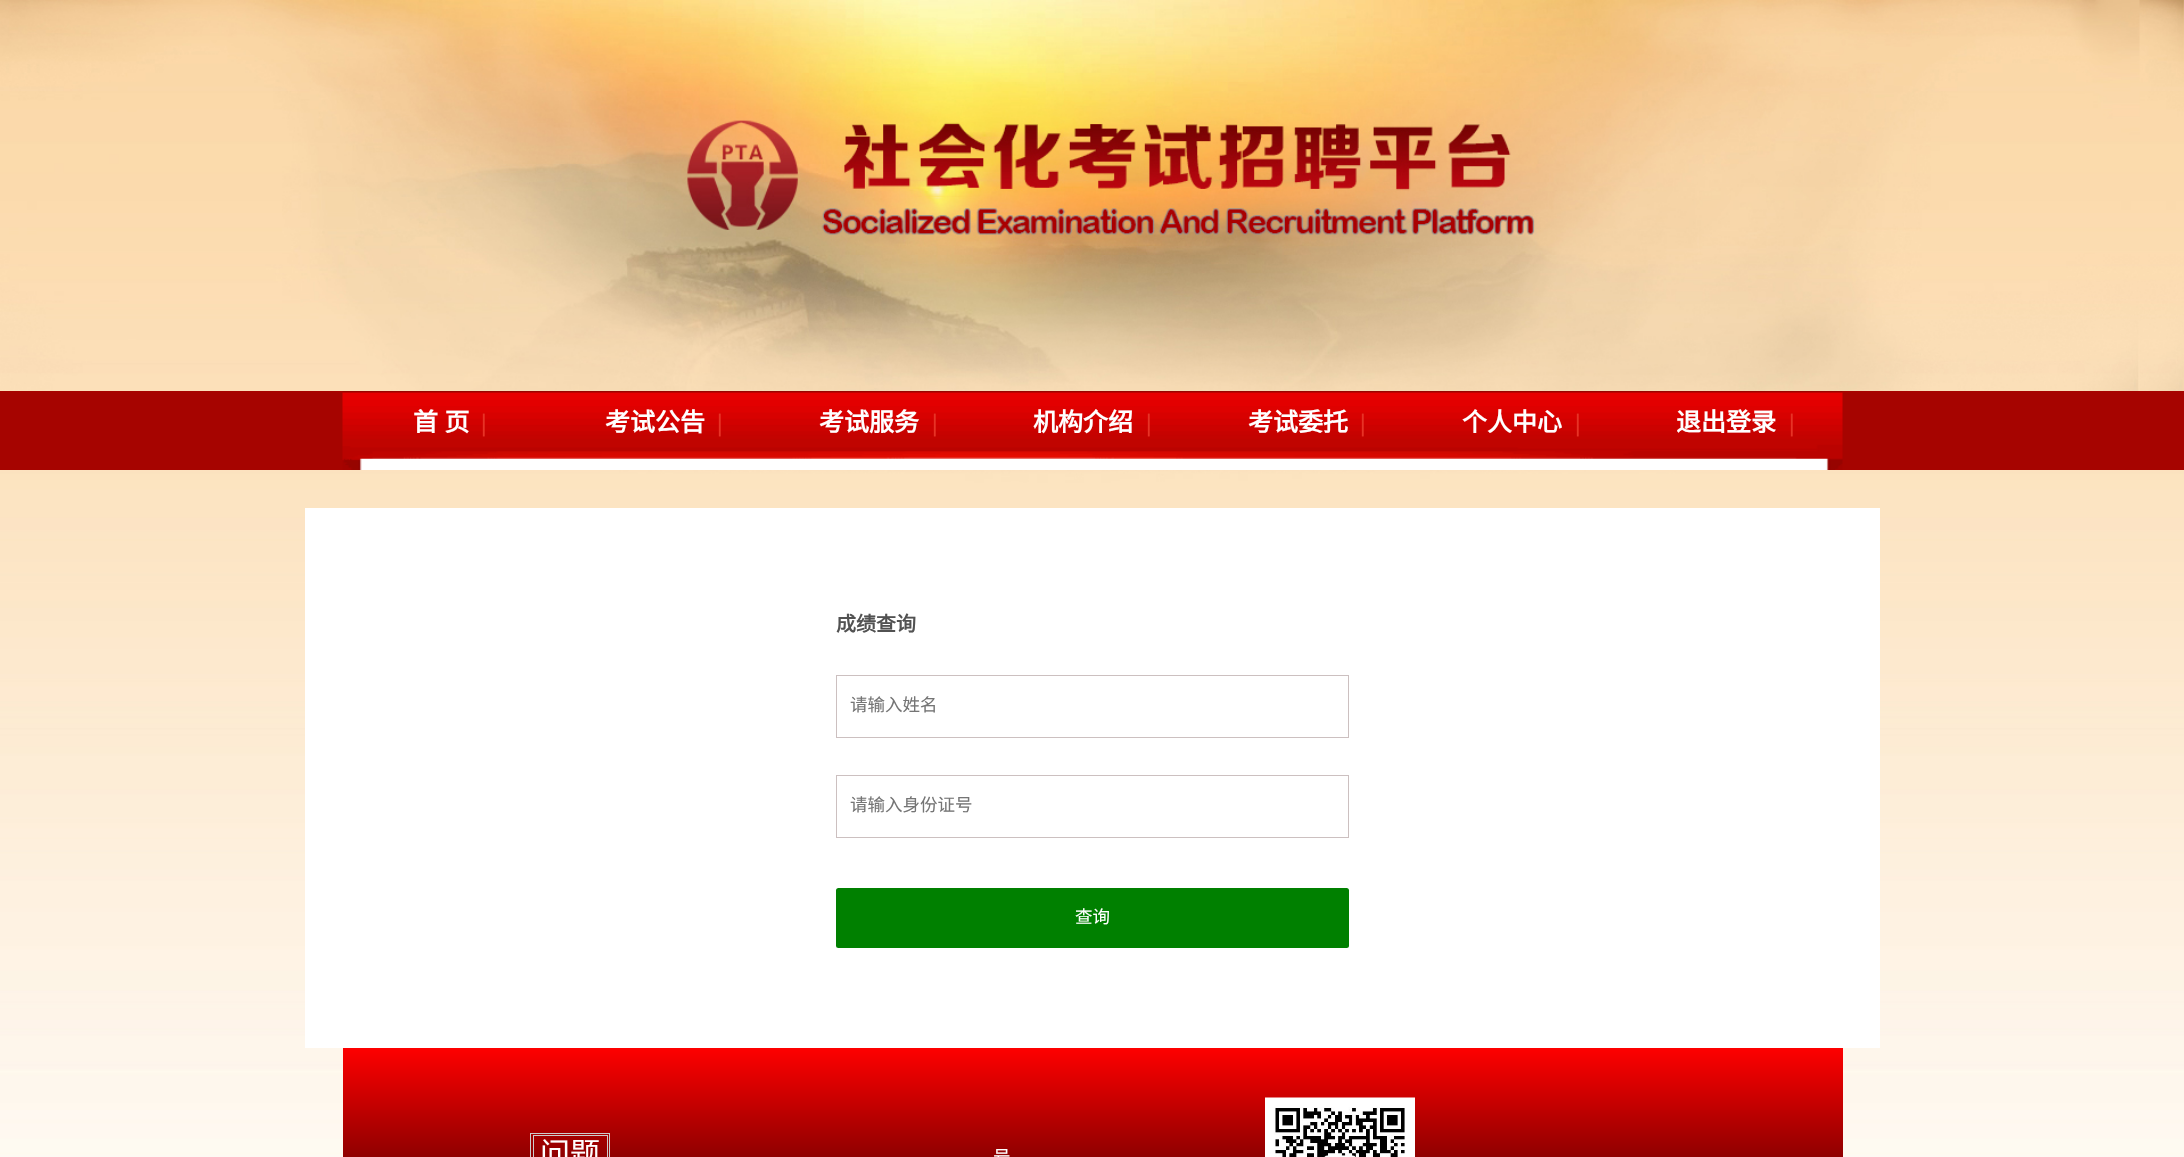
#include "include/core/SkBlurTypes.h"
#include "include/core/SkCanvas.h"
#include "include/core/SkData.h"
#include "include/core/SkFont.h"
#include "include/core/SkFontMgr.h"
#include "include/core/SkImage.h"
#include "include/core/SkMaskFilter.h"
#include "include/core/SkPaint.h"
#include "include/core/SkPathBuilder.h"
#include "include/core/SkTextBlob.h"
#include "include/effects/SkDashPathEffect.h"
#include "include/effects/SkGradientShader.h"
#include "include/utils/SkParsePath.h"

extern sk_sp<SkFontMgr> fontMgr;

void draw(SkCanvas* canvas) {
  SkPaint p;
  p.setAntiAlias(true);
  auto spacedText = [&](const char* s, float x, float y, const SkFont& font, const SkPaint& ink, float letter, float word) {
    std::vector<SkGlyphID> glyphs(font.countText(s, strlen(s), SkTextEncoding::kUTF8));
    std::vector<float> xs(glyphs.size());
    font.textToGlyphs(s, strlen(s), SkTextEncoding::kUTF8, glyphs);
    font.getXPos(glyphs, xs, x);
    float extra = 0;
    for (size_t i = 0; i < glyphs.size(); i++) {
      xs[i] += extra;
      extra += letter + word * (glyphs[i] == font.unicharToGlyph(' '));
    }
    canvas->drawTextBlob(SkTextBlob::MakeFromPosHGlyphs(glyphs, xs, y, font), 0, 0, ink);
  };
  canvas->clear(SK_ColorWHITE);
  canvas->drawImageRect(SkImages::DeferredFromEncodedData(SkData::MakeFromFileName("images/1.png")), SkRect::MakeLTRB(0, 0, 2184, 1157), SkSamplingOptions());
  p.setColor(SkColorSetRGB(166, 4, 0));
  canvas->drawRect(SkRect::MakeLTRB(0, 391, 2184, 470), p);
  canvas->drawImageRect(SkImages::DeferredFromEncodedData(SkData::MakeFromFileName("images/2.png")), SkRect::MakeLTRB(342, 391, 1843, 470), SkSamplingOptions());
  p.setColor(SK_ColorWHITE);
  canvas->drawRect(SkRect::MakeLTRB(305, 508, 1880, 1048), p);
  p.setStyle(SkPaint::kStroke_Style);
  p.setStrokeWidth(1);
  p.setColor(SkColorSetRGB(204, 192, 192));
  canvas->drawRect(SkRect::MakeLTRB(836.5f, 675.5f, 1348.5f, 737.5f), p);
  canvas->drawRect(SkRect::MakeLTRB(836.5f, 775.5f, 1348.5f, 837.5f), p);
  p.setStyle(SkPaint::kFill_Style);
  p.setColor(SkColorSetRGB(0, 128, 0));
  canvas->drawRoundRect(SkRect::MakeLTRB(836, 888, 1349, 948), 2.5f, 2.5f, p);
  {
    const SkColor colors[] = {SkColorSetRGB(255, 0, 0), SK_ColorBLACK};
    const float stops[] = {0, 1};
    const SkPoint ends[] = {{1093, 1047}, {1093, 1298}};
    p.setShader(SkGradientShader::MakeLinear(ends, colors, stops, 2, SkTileMode::kClamp));
    p.setAlpha(255);
  }
  canvas->drawRect(SkRect::MakeLTRB(343, 1048, 1843, 1157), p);
  p.setStyle(SkPaint::kStroke_Style);
  p.setShader(nullptr);
  p.setColor(SkColorSetRGB(204, 204, 204));
  canvas->drawRect(SkRect::MakeLTRB(530.5f, 1133.5f, 609.5f, 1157.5f), p);
  canvas->drawRect(SkRect::MakeLTRB(533.5f, 1135.5f, 607.5f, 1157.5f), p);
  canvas->drawImageRect(SkImages::DeferredFromEncodedData(SkData::MakeFromFileName("images/3.png")), SkRect::MakeLTRB(1265, 1097, 1415, 1157), SkSamplingOptions());
  SkFont font1(fontMgr->matchFamilyStyle("Noto Sans CJK SC", SkFontStyle::Bold()), 25);
  font1.setSubpixel(true);
  p.setStyle(SkPaint::kFill_Style);
  p.setColor(SK_ColorWHITE);
  spacedText("首 页", 413, 431, font1, p, 0, 1);
  SkFont font2(fontMgr->matchFamilyStyle("Liberation Serif", SkFontStyle::Bold()), 25);
  font2.setSubpixel(true);
  p.setColor(SkColorSetRGB(231, 51, 38));
  canvas->drawString("|", 481, 431, font2, p);
  p.setColor(SK_ColorWHITE);
  canvas->drawString("考试公告", 605, 431, font1, p);
  p.setColor(SkColorSetRGB(231, 51, 38));
  canvas->drawString("|", 717, 431, font2, p);
  p.setColor(SK_ColorWHITE);
  canvas->drawString("考试服务", 819, 431, font1, p);
  p.setColor(SkColorSetRGB(231, 51, 38));
  canvas->drawString("|", 932, 431, font2, p);
  p.setColor(SK_ColorWHITE);
  canvas->drawString("机构介绍", 1033, 431, font1, p);
  p.setColor(SkColorSetRGB(231, 51, 38));
  canvas->drawString("|", 1146, 431, font2, p);
  p.setColor(SK_ColorWHITE);
  canvas->drawString("考试委托", 1248, 431, font1, p);
  p.setColor(SkColorSetRGB(231, 51, 38));
  canvas->drawString("|", 1360, 431, font2, p);
  p.setColor(SK_ColorWHITE);
  canvas->drawString("个人中心", 1462, 431, font1, p);
  p.setColor(SkColorSetRGB(231, 51, 38));
  canvas->drawString("|", 1575, 431, font2, p);
  p.setColor(SK_ColorWHITE);
  canvas->drawString("退出登录", 1676, 431, font1, p);
  p.setColor(SkColorSetRGB(231, 51, 38));
  canvas->drawString("|", 1789, 431, font2, p);
  SkFont font3(fontMgr->matchFamilyStyle("Noto Sans CJK SC", SkFontStyle::Bold()), 20);
  font3.setSubpixel(true);
  p.setColor(SkColorSetRGB(82, 82, 82));
  canvas->drawString("成绩查询", 836, 631, font3, p);
  SkFont font4(fontMgr->matchFamilyStyle("Noto Sans CJK SC", SkFontStyle::Normal()), 17.5f);
  font4.setSubpixel(true);
  p.setColor(SkColorSetRGB(117, 117, 117));
  canvas->drawString("请输入姓名", 850, 711, font4, p);
  canvas->drawString("请输入身份证号", 850, 811, font4, p);
  p.setColor(SK_ColorWHITE);
  canvas->drawString("查询", 1075, 923, font4, p);
  SkFont font5(fontMgr->matchFamilyStyle("Noto Sans CJK SC", SkFontStyle::Normal()), 30);
  font5.setSubpixel(true);
  canvas->drawString("问题", 540, 1164, font5, p);
  canvas->drawString("号", 993, 1163, font4, p);
}
